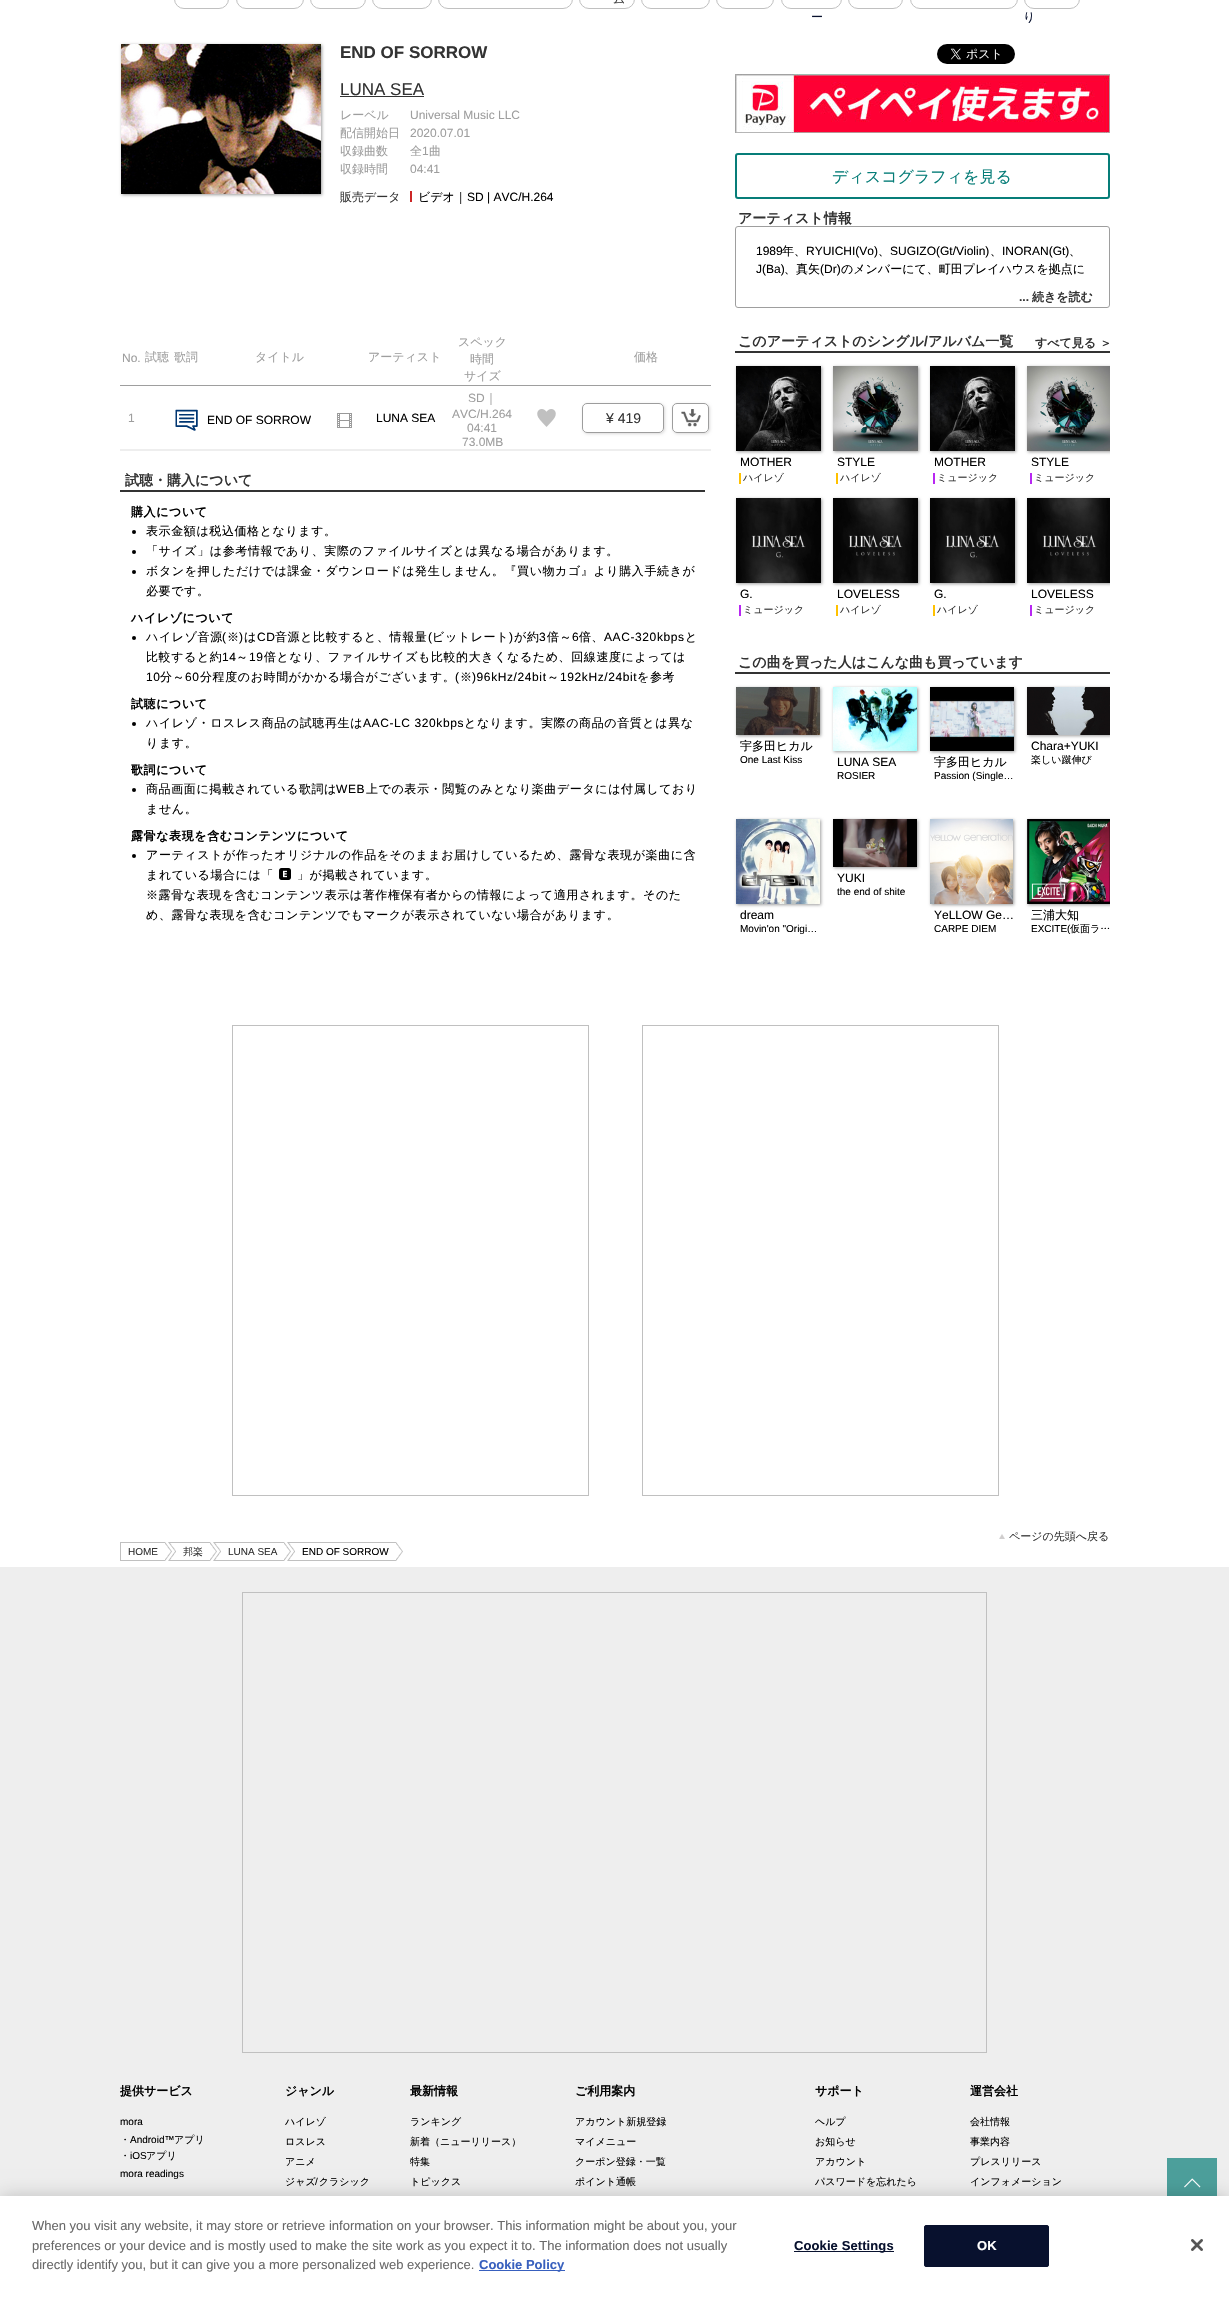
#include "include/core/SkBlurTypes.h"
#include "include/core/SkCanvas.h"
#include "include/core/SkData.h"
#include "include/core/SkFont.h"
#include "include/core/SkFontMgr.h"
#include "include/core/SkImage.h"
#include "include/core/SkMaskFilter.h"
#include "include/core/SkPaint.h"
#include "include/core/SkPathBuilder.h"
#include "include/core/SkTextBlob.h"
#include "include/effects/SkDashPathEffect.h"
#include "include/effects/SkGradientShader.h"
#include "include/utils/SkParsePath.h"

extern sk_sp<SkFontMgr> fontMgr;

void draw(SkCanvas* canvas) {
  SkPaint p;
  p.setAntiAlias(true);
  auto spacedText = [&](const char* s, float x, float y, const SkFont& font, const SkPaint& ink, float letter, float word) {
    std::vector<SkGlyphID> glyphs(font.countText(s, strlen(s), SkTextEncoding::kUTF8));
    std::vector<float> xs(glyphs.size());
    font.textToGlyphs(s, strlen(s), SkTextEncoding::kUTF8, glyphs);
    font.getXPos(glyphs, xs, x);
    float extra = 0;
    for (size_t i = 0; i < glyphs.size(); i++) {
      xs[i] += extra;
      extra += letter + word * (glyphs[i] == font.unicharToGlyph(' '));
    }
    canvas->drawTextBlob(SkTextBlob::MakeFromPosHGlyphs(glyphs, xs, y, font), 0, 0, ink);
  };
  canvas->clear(SK_ColorWHITE);
  p.setStyle(SkPaint::kStroke_Style);
  p.setStrokeWidth(1);
  p.setColor(SkColorSetRGB(192, 192, 192));
  canvas->drawRoundRect(SkRect::MakeLTRB(174.5f, -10.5f, 228.5f, 8.5f), 9.5f, 9.5f, p);
  canvas->drawRoundRect(SkRect::MakeLTRB(236.5f, -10.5f, 303.5f, 8.5f), 9.5f, 9.5f, p);
  canvas->drawRoundRect(SkRect::MakeLTRB(310.5f, -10.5f, 365.5f, 8.5f), 9.5f, 9.5f, p);
  canvas->drawRoundRect(SkRect::MakeLTRB(372.5f, -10.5f, 431.5f, 8.5f), 9.5f, 9.5f, p);
  canvas->drawRoundRect(SkRect::MakeLTRB(438.5f, -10.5f, 572.5f, 8.5f), 9.5f, 9.5f, p);
  canvas->drawRoundRect(SkRect::MakeLTRB(579.5f, -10.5f, 634.5f, 8.5f), 9.5f, 9.5f, p);
  canvas->drawRoundRect(SkRect::MakeLTRB(641.5f, -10.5f, 709.5f, 8.5f), 9.5f, 9.5f, p);
  canvas->drawRoundRect(SkRect::MakeLTRB(716.5f, -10.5f, 773.5f, 8.5f), 9.5f, 9.5f, p);
  canvas->drawRoundRect(SkRect::MakeLTRB(781.5f, -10.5f, 841.5f, 8.5f), 9.5f, 9.5f, p);
  canvas->drawRoundRect(SkRect::MakeLTRB(848.5f, -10.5f, 902.5f, 8.5f), 9.5f, 9.5f, p);
  canvas->drawRoundRect(SkRect::MakeLTRB(910.5f, -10.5f, 1017.5f, 8.5f), 9.5f, 9.5f, p);
  canvas->drawRoundRect(SkRect::MakeLTRB(1024.5f, -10.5f, 1079.5f, 8.5f), 9.5f, 9.5f, p);
  p.setStyle(SkPaint::kFill_Style);
  p.setColor(SkColorSetRGB(158, 158, 158));
  p.setMaskFilter(SkMaskFilter::MakeBlur(kNormal_SkBlurStyle, 1.5f));
  canvas->drawRect(SkRect::MakeLTRB(122, 45, 322, 195), p);
  p.setMaskFilter(nullptr);
  canvas->drawImageRect(SkImages::DeferredFromEncodedData(SkData::MakeFromFileName("images/1.png")), SkRect::MakeLTRB(121, 44, 321, 194), SkSamplingOptions());
  p.setColor(SkColorSetRGB(51, 51, 51));
  canvas->drawRect(SkRect::MakeLTRB(340, 96, 424, 97), p);
  p.setColor(SkColorSetRGB(204, 38, 38));
  canvas->drawRect(SkRect::MakeLTRB(410, 191, 412, 202), p);
  p.setColor(SkColorSetRGB(158, 158, 158));
  canvas->drawRect(SkRect::MakeLTRB(120, 385, 711, 386), p);
  canvas->drawImageRect(SkImages::DeferredFromEncodedData(SkData::MakeFromFileName("images/2.png")), SkRect::MakeLTRB(175, 409, 198, 431), SkSamplingOptions());
  canvas->drawImageRect(SkImages::DeferredFromEncodedData(SkData::MakeFromFileName("images/3.png")), SkRect::MakeLTRB(337, 413, 352, 428), SkSamplingOptions());
  canvas->drawImageRect(SkImages::DeferredFromEncodedData(SkData::MakeFromFileName("images/4.png")), SkRect::MakeLTRB(537, 409, 556, 427), SkSamplingOptions());
  p.setColor(SkColorSetRGB(238, 238, 238));
  canvas->drawRect(SkRect::MakeLTRB(120, 449, 711, 450), p);
  canvas->save();
  canvas->clipPath(SkPathBuilder(SkPathFillType::kEvenOdd).moveTo(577, 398).lineTo(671, 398).lineTo(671, 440).lineTo(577, 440).close().moveTo(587, 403).lineTo(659, 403).cubicTo(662, 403, 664, 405, 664, 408).lineTo(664, 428).cubicTo(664, 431, 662, 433, 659, 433).lineTo(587, 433).cubicTo(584, 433, 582, 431, 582, 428).lineTo(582, 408).cubicTo(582, 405, 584, 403, 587, 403).close().detach(), true);
  p.setColor(SkColorSetRGB(220, 219, 219));
  p.setMaskFilter(SkMaskFilter::MakeBlur(kNormal_SkBlurStyle, 1.5f));
  canvas->drawRoundRect(SkRect::MakeLTRB(583, 404, 665, 434), 5, 5, p);
  p.setMaskFilter(nullptr);
  canvas->restore();
  p.setStyle(SkPaint::kStroke_Style);
  p.setColor(SkColorSetRGB(157, 157, 157));
  canvas->drawRoundRect(SkRect::MakeLTRB(582.5f, 403.5f, 663.5f, 432.5f), 4.5f, 4.5f, p);
  canvas->save();
  canvas->clipPath(SkPathBuilder(SkPathFillType::kEvenOdd).moveTo(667, 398).lineTo(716, 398).lineTo(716, 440).lineTo(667, 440).close().moveTo(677, 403).lineTo(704, 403).cubicTo(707, 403, 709, 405, 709, 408).lineTo(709, 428).cubicTo(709, 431, 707, 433, 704, 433).lineTo(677, 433).cubicTo(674, 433, 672, 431, 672, 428).lineTo(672, 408).cubicTo(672, 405, 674, 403, 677, 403).close().detach(), true);
  p.setStyle(SkPaint::kFill_Style);
  p.setColor(SkColorSetRGB(220, 219, 219));
  p.setMaskFilter(SkMaskFilter::MakeBlur(kNormal_SkBlurStyle, 1.5f));
  canvas->drawRoundRect(SkRect::MakeLTRB(673, 404, 710, 434), 5, 5, p);
  p.setMaskFilter(nullptr);
  canvas->restore();
  p.setStyle(SkPaint::kStroke_Style);
  p.setColor(SkColorSetRGB(157, 157, 157));
  canvas->drawRoundRect(SkRect::MakeLTRB(672.5f, 403.5f, 708.5f, 432.5f), 4.5f, 4.5f, p);
  canvas->drawImageRect(SkImages::DeferredFromEncodedData(SkData::MakeFromFileName("images/5.png")), SkRect::MakeLTRB(681, 409, 701, 427), SkSamplingOptions());
  p.setStyle(SkPaint::kFill_Style);
  p.setColor(SkColorSetRGB(238, 238, 238));
  canvas->drawRect(SkRect::MakeLTRB(120, 450, 711, 451), p);
  p.setColor(SkColorSetRGB(51, 51, 51));
  canvas->drawRect(SkRect::MakeLTRB(120, 490, 705, 492), p);
  p.setColor(SK_ColorBLACK);
  canvas->drawCircle(134, 532, 2, p);
  canvas->drawCircle(134, 552, 2, p);
  canvas->drawCircle(134, 572, 2, p);
  canvas->drawCircle(134, 638, 2, p);
  canvas->drawCircle(134, 724, 2, p);
  canvas->drawCircle(134, 790, 2, p);
  canvas->drawCircle(134, 856, 2, p);
  canvas->drawImageRect(SkImages::DeferredFromEncodedData(SkData::MakeFromFileName("images/6.png")), SkRect::MakeLTRB(279, 868, 291, 880), SkSamplingOptions());
  canvas->drawImageRect(SkImages::DeferredFromEncodedData(SkData::MakeFromFileName("images/7.png")), SkRect::MakeLTRB(937, 44, 1015, 64), SkSamplingOptions());
  canvas->drawImageRect(SkImages::DeferredFromEncodedData(SkData::MakeFromFileName("images/8.png")), SkRect::MakeLTRB(735, 74, 1110, 133), SkSamplingOptions());
  p.setStyle(SkPaint::kStroke_Style);
  p.setStrokeWidth(2);
  p.setColor(SkColorSetRGB(6, 125, 120));
  canvas->drawRoundRect(SkRect::MakeLTRB(736, 154, 1109, 198), 2, 2, p);
  p.setStrokeWidth(1);
  p.setColor(SkColorSetRGB(158, 158, 158));
  canvas->drawRoundRect(SkRect::MakeLTRB(735.5f, 226.5f, 1109.5f, 307.5f), 2.5f, 2.5f, p);
  p.setStyle(SkPaint::kFill_Style);
  p.setColor(SkColorSetRGB(51, 51, 51));
  canvas->drawRect(SkRect::MakeLTRB(735, 351, 1110, 353), p);
  p.setColor(SkColorSetRGB(158, 158, 158));
  p.setMaskFilter(SkMaskFilter::MakeBlur(kNormal_SkBlurStyle, 1.5f));
  canvas->drawRect(SkRect::MakeLTRB(737, 367, 822, 452), p);
  p.setMaskFilter(nullptr);
  canvas->drawImageRect(SkImages::DeferredFromEncodedData(SkData::MakeFromFileName("images/9.png")), SkRect::MakeLTRB(736, 366, 821, 451), SkSamplingOptions());
  p.setColor(SkColorSetRGB(255, 193, 0));
  canvas->drawRect(SkRect::MakeLTRB(739, 473, 741, 484), p);
  p.setColor(SkColorSetRGB(158, 158, 158));
  p.setMaskFilter(SkMaskFilter::MakeBlur(kNormal_SkBlurStyle, 1.5f));
  canvas->drawRect(SkRect::MakeLTRB(834, 367, 919, 452), p);
  p.setMaskFilter(nullptr);
  canvas->drawImageRect(SkImages::DeferredFromEncodedData(SkData::MakeFromFileName("images/10.png")), SkRect::MakeLTRB(833, 366, 918, 451), SkSamplingOptions());
  p.setColor(SkColorSetRGB(255, 193, 0));
  canvas->drawRect(SkRect::MakeLTRB(836, 473, 838, 484), p);
  p.setColor(SkColorSetRGB(158, 158, 158));
  p.setMaskFilter(SkMaskFilter::MakeBlur(kNormal_SkBlurStyle, 1.5f));
  canvas->drawRect(SkRect::MakeLTRB(931, 367, 1016, 452), p);
  p.setMaskFilter(nullptr);
  canvas->drawImageRect(SkImages::DeferredFromEncodedData(SkData::MakeFromFileName("images/11.png")), SkRect::MakeLTRB(930, 366, 1015, 451), SkSamplingOptions());
  p.setColor(SkColorSetRGB(184, 39, 242));
  canvas->drawRect(SkRect::MakeLTRB(933, 473, 935, 484), p);
  canvas->save();
  canvas->clipRect(SkRect::MakeLTRB(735, 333, 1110, 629));
  p.setColor(SkColorSetRGB(158, 158, 158));
  p.setMaskFilter(SkMaskFilter::MakeBlur(kNormal_SkBlurStyle, 1.5f));
  canvas->drawRect(SkRect::MakeLTRB(1028, 367, 1113, 452), p);
  p.setMaskFilter(nullptr);
  canvas->restore();
  canvas->drawImageRect(SkImages::DeferredFromEncodedData(SkData::MakeFromFileName("images/12.png")), SkRect::MakeLTRB(1027, 366, 1110, 451), SkSamplingOptions());
  p.setColor(SkColorSetRGB(184, 39, 242));
  canvas->drawRect(SkRect::MakeLTRB(1030, 473, 1032, 484), p);
  p.setColor(SkColorSetRGB(158, 158, 158));
  p.setMaskFilter(SkMaskFilter::MakeBlur(kNormal_SkBlurStyle, 1.5f));
  canvas->drawRect(SkRect::MakeLTRB(737, 499, 822, 584), p);
  p.setMaskFilter(nullptr);
  canvas->drawImageRect(SkImages::DeferredFromEncodedData(SkData::MakeFromFileName("images/13.png")), SkRect::MakeLTRB(736, 498, 821, 583), SkSamplingOptions());
  p.setColor(SkColorSetRGB(184, 39, 242));
  canvas->drawRect(SkRect::MakeLTRB(739, 605, 741, 616), p);
  p.setColor(SkColorSetRGB(158, 158, 158));
  p.setMaskFilter(SkMaskFilter::MakeBlur(kNormal_SkBlurStyle, 1.5f));
  canvas->drawRect(SkRect::MakeLTRB(834, 499, 919, 584), p);
  p.setMaskFilter(nullptr);
  canvas->drawImageRect(SkImages::DeferredFromEncodedData(SkData::MakeFromFileName("images/14.png")), SkRect::MakeLTRB(833, 498, 918, 583), SkSamplingOptions());
  p.setColor(SkColorSetRGB(255, 193, 0));
  canvas->drawRect(SkRect::MakeLTRB(836, 605, 838, 616), p);
  p.setColor(SkColorSetRGB(158, 158, 158));
  p.setMaskFilter(SkMaskFilter::MakeBlur(kNormal_SkBlurStyle, 1.5f));
  canvas->drawRect(SkRect::MakeLTRB(931, 499, 1016, 584), p);
  p.setMaskFilter(nullptr);
  canvas->drawImageRect(SkImages::DeferredFromEncodedData(SkData::MakeFromFileName("images/15.png")), SkRect::MakeLTRB(930, 498, 1015, 583), SkSamplingOptions());
  p.setColor(SkColorSetRGB(255, 193, 0));
  canvas->drawRect(SkRect::MakeLTRB(933, 605, 935, 616), p);
  canvas->save();
  canvas->clipRect(SkRect::MakeLTRB(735, 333, 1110, 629));
  p.setColor(SkColorSetRGB(158, 158, 158));
  p.setMaskFilter(SkMaskFilter::MakeBlur(kNormal_SkBlurStyle, 1.5f));
  canvas->drawRect(SkRect::MakeLTRB(1028, 499, 1113, 584), p);
  p.setMaskFilter(nullptr);
  canvas->restore();
  canvas->drawImageRect(SkImages::DeferredFromEncodedData(SkData::MakeFromFileName("images/16.png")), SkRect::MakeLTRB(1027, 498, 1110, 583), SkSamplingOptions());
  p.setColor(SkColorSetRGB(184, 39, 242));
  canvas->drawRect(SkRect::MakeLTRB(1030, 605, 1032, 616), p);
  p.setColor(SkColorSetRGB(51, 51, 51));
  canvas->drawRect(SkRect::MakeLTRB(735, 672, 1110, 674), p);
  p.setColor(SkColorSetRGB(158, 158, 158));
  p.setMaskFilter(SkMaskFilter::MakeBlur(kNormal_SkBlurStyle, 1.5f));
  canvas->drawRect(SkRect::MakeLTRB(737, 688, 821, 736), p);
  p.setMaskFilter(nullptr);
  canvas->drawImageRect(SkImages::DeferredFromEncodedData(SkData::MakeFromFileName("images/17.png")), SkRect::MakeLTRB(736, 687, 820, 735), SkSamplingOptions());
  p.setMaskFilter(SkMaskFilter::MakeBlur(kNormal_SkBlurStyle, 1.5f));
  canvas->drawRect(SkRect::MakeLTRB(834, 688, 918, 752), p);
  p.setMaskFilter(nullptr);
  canvas->drawImageRect(SkImages::DeferredFromEncodedData(SkData::MakeFromFileName("images/18.png")), SkRect::MakeLTRB(833, 687, 917, 751), SkSamplingOptions());
  p.setMaskFilter(SkMaskFilter::MakeBlur(kNormal_SkBlurStyle, 1.5f));
  canvas->drawRect(SkRect::MakeLTRB(931, 688, 1015, 752), p);
  p.setMaskFilter(nullptr);
  canvas->drawImageRect(SkImages::DeferredFromEncodedData(SkData::MakeFromFileName("images/19.png")), SkRect::MakeLTRB(930, 687, 1014, 751), SkSamplingOptions());
  canvas->save();
  canvas->clipRect(SkRect::MakeLTRB(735, 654, 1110, 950));
  p.setMaskFilter(SkMaskFilter::MakeBlur(kNormal_SkBlurStyle, 1.5f));
  canvas->drawRect(SkRect::MakeLTRB(1028, 688, 1112, 736), p);
  p.setMaskFilter(nullptr);
  canvas->restore();
  canvas->drawImageRect(SkImages::DeferredFromEncodedData(SkData::MakeFromFileName("images/20.png")), SkRect::MakeLTRB(1027, 687, 1110, 735), SkSamplingOptions());
  p.setMaskFilter(SkMaskFilter::MakeBlur(kNormal_SkBlurStyle, 1.5f));
  canvas->drawRect(SkRect::MakeLTRB(834, 820, 918, 868), p);
  p.setMaskFilter(nullptr);
  canvas->drawImageRect(SkImages::DeferredFromEncodedData(SkData::MakeFromFileName("images/21.png")), SkRect::MakeLTRB(833, 819, 917, 867), SkSamplingOptions());
  p.setMaskFilter(SkMaskFilter::MakeBlur(kNormal_SkBlurStyle, 1.5f));
  canvas->drawRect(SkRect::MakeLTRB(737, 820, 821, 905), p);
  p.setMaskFilter(nullptr);
  canvas->drawImageRect(SkImages::DeferredFromEncodedData(SkData::MakeFromFileName("images/22.png")), SkRect::MakeLTRB(736, 819, 820, 904), SkSamplingOptions());
  p.setMaskFilter(SkMaskFilter::MakeBlur(kNormal_SkBlurStyle, 1.5f));
  canvas->drawRect(SkRect::MakeLTRB(931, 820, 1014, 905), p);
  p.setMaskFilter(nullptr);
  canvas->drawImageRect(SkImages::DeferredFromEncodedData(SkData::MakeFromFileName("images/23.png")), SkRect::MakeLTRB(930, 819, 1013, 904), SkSamplingOptions());
  canvas->save();
  canvas->clipRect(SkRect::MakeLTRB(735, 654, 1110, 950));
  p.setMaskFilter(SkMaskFilter::MakeBlur(kNormal_SkBlurStyle, 1.5f));
  canvas->drawRect(SkRect::MakeLTRB(1028, 820, 1113, 905), p);
  p.setMaskFilter(nullptr);
  canvas->restore();
  canvas->drawImageRect(SkImages::DeferredFromEncodedData(SkData::MakeFromFileName("images/24.png")), SkRect::MakeLTRB(1027, 819, 1110, 904), SkSamplingOptions());
  p.setStyle(SkPaint::kStroke_Style);
  p.setColor(SkColorSetRGB(192, 192, 192));
  canvas->drawRect(SkRect::MakeLTRB(232.5f, 1025.5f, 588.5f, 1495.5f), p);
  canvas->drawRect(SkRect::MakeLTRB(642.5f, 1025.5f, 998.5f, 1495.5f), p);
  p.setStyle(SkPaint::kFill_Style);
  p.setColor(SkColorSetRGB(238, 238, 238));
  canvas->drawRect(SkRect::MakeLTRB(0, 1567, 1229, 2196), p);
  p.setColor(SkColorSetRGB(76, 159, 155));
  canvas->drawRect(SkRect::MakeLTRB(1167, 2158, 1217, 2196), p);
  canvas->drawImageRect(SkImages::DeferredFromEncodedData(SkData::MakeFromFileName("images/25.png")), SkRect::MakeLTRB(1184, 2178, 1201, 2188), SkSamplingOptions());
  canvas->drawImageRect(SkImages::DeferredFromEncodedData(SkData::MakeFromFileName("images/26.png")), SkRect::MakeLTRB(999, 1534, 1005, 1539), SkSamplingOptions());
  p.setColor(SkColorSetRGB(192, 192, 192));
  canvas->drawRect(SkRect::MakeLTRB(120, 1542, 165, 1543), p);
  canvas->drawRect(SkRect::MakeLTRB(120, 1560, 165, 1561), p);
  canvas->drawRect(SkRect::MakeLTRB(120, 1542, 121, 1561), p);
  canvas->drawImageRect(SkImages::DeferredFromEncodedData(SkData::MakeFromFileName("images/27.png")), SkRect::MakeLTRB(165, 1542, 176, 1561), SkSamplingOptions());
  canvas->drawRect(SkRect::MakeLTRB(176, 1542, 210, 1543), p);
  canvas->drawRect(SkRect::MakeLTRB(176, 1560, 210, 1561), p);
  canvas->drawImageRect(SkImages::DeferredFromEncodedData(SkData::MakeFromFileName("images/27.png")), SkRect::MakeLTRB(210, 1542, 221, 1561), SkSamplingOptions());
  canvas->drawRect(SkRect::MakeLTRB(221, 1542, 284, 1543), p);
  canvas->drawRect(SkRect::MakeLTRB(221, 1560, 284, 1561), p);
  canvas->drawImageRect(SkImages::DeferredFromEncodedData(SkData::MakeFromFileName("images/27.png")), SkRect::MakeLTRB(284, 1542, 295, 1561), SkSamplingOptions());
  canvas->drawRect(SkRect::MakeLTRB(295, 1542, 396, 1543), p);
  canvas->drawRect(SkRect::MakeLTRB(295, 1560, 396, 1561), p);
  canvas->drawImageRect(SkImages::DeferredFromEncodedData(SkData::MakeFromFileName("images/28.png")), SkRect::MakeLTRB(396, 1542, 403, 1561), SkSamplingOptions());
  p.setStyle(SkPaint::kStroke_Style);
  canvas->drawRect(SkRect::MakeLTRB(242.5f, 1592.5f, 986.5f, 2052.5f), p);
  p.setStyle(SkPaint::kFill_Style);
  p.setColor(SkColorSetARGB(51, 0, 0, 0));
  p.setMaskFilter(SkMaskFilter::MakeBlur(kNormal_SkBlurStyle, 9));
  canvas->drawRect(SkRect::MakeLTRB(0, 2196, 1229, 2298), p);
  p.setMaskFilter(nullptr);
  p.setColor(SK_ColorWHITE);
  canvas->drawRect(SkRect::MakeLTRB(0, 2196, 1229, 2298), p);
  p.setColor(SkColorSetRGB(56, 96, 190));
  canvas->drawRect(SkRect::MakeLTRB(479, 2270, 565, 2271), p);
  p.setColor(SkColorSetRGB(8, 17, 46));
  canvas->drawRect(SkRect::MakeLTRB(794, 2251, 894, 2252), p);
  canvas->drawRoundRect(SkRect::MakeLTRB(924.5f, 2225.5f, 1048.5f, 2266.5f), 1.5f, 1.5f, p);
  p.setStyle(SkPaint::kStroke_Style);
  canvas->drawRoundRect(SkRect::MakeLTRB(924.5f, 2225.5f, 1048.5f, 2266.5f), 1.5f, 1.5f, p);
  canvas->drawImageRect(SkImages::DeferredFromEncodedData(SkData::MakeFromFileName("images/29.png")), SkRect::MakeLTRB(1191, 2239, 1203, 2251), SkSamplingOptions());
  SkFont font1(fontMgr->matchFamilyStyle("WenQuanYi Zen Hei", SkFontStyle(500, SkFontStyle::kNormal_Width, SkFontStyle::kUpright_Slant)), 12);
  font1.setSubpixel(true);
  p.setStyle(SkPaint::kFill_Style);
  p.setColor(SkColorSetRGB(51, 51, 51));
  spacedText("ム", 613, 3, font1, p, 1, 0);
  SkFont font2(fontMgr->matchFamilyStyle("Liberation Sans", SkFontStyle::Bold()), 17);
  font2.setSubpixel(true);
  canvas->drawString("END OF SORROW", 340, 58, font2, p);
  SkFont font3(fontMgr->matchFamilyStyle("Liberation Sans", SkFontStyle::Normal()), 17);
  font3.setSubpixel(true);
  canvas->drawString("LUNA SEA", 340, 95, font3, p);
  p.setColor(SkColorSetRGB(158, 158, 158));
  canvas->drawString("レーベル", 340, 119, font1, p);
  canvas->drawString("配信開始日", 340, 137, font1, p);
  canvas->drawString("収録曲数", 340, 155, font1, p);
  canvas->drawString("収録時間", 340, 173, font1, p);
  p.setColor(SkColorSetRGB(51, 51, 51));
  canvas->drawString("販売データ", 340, 201, font1, p);
  SkFont font4(fontMgr->matchFamilyStyle("Liberation Sans", SkFontStyle::Normal()), 12);
  font4.setSubpixel(true);
  p.setColor(SkColorSetRGB(158, 158, 158));
  canvas->drawString("Universal Music LLC", 410, 119, font4, p);
  canvas->drawString("2020.07.01", 410, 137, font4, p);
  canvas->drawString("全", 410, 155, font1, p);
  canvas->drawString("1", 422, 155, font4, p);
  canvas->drawString("曲", 429, 155, font1, p);
  canvas->drawString("04:41", 410, 173, font4, p);
  p.setColor(SK_ColorBLACK);
  canvas->drawString("ビデオ｜", 418, 201, font1, p);
  canvas->drawString("SD | AVC/H.264", 467, 201, font4, p);
  p.setColor(SkColorSetRGB(158, 158, 158));
  canvas->drawString("No.", 122, 362, font4, p);
  canvas->drawString("試聴", 145, 361, font1, p);
  canvas->drawString("歌詞", 174, 361, font1, p);
  canvas->drawString("タイトル", 255, 361, font1, p);
  canvas->drawString("アーティスト", 368, 361, font1, p);
  canvas->drawString("スペック", 458, 346, font1, p);
  canvas->drawString("時間", 470, 363, font1, p);
  canvas->drawString("サイズ", 464, 380, font1, p);
  canvas->drawString("価格", 634, 361, font1, p);
  canvas->drawString("1", 128, 422, font4, p);
  p.setColor(SK_ColorBLACK);
  canvas->drawString("END OF SORROW", 207, 424, font4, p);
  canvas->drawString("LUNA SEA", 376, 422, font4, p);
  p.setColor(SkColorSetRGB(158, 158, 158));
  canvas->drawString("SD", 468, 402, font4, p);
  canvas->drawString("｜", 485, 402, font1, p);
  canvas->drawString("AVC/H.264", 452, 418, font4, p);
  canvas->drawString("04:41", 467, 432, font4, p);
  canvas->drawString("73.0MB", 462, 446, font4, p);
  SkFont font5(fontMgr->matchFamilyStyle("Liberation Sans", SkFontStyle::Normal()), 14);
  font5.setSubpixel(true);
  p.setColor(SkColorSetRGB(51, 51, 51));
  canvas->drawString("¥ 419", 606, 423, font5, p);
  SkFont font6(fontMgr->matchFamilyStyle("WenQuanYi Zen Hei", SkFontStyle::Bold()), 14);
  font6.setSubpixel(true);
  canvas->drawString("試聴・購入について", 125, 485, font6, p);
  SkFont font7(fontMgr->matchFamilyStyle("WenQuanYi Zen Hei", SkFontStyle::Bold()), 12);
  font7.setSubpixel(true);
  p.setColor(SK_ColorBLACK);
  spacedText("購入について", 131, 516, font7, p, 0.6f, 0);
  spacedText("表示金額は税込価格となります。", 146, 535, font1, p, 0.6f, 0);
  spacedText("「サイズ」は参考情報であり、実際のファイルサイズとは異なる場合があります。", 146, 555, font1, p, 0.6f, 0);
  spacedText("ボタンを押しただけでは課金・ダウンロードは発生しません。『買い物カゴ』より購入手続きが", 146, 575, font1, p, 0.6f, 0);
  spacedText("必要です。", 146, 595, font1, p, 0.6f, 0);
  spacedText("ハイレゾについて", 131, 622, font7, p, 0.6f, 0);
  spacedText("ハイレゾ音源", 146, 641, font1, p, 0.6f, 0);
  spacedText("(", 222, 641, font4, p, 0.6f, 0);
  spacedText("※", 227, 641, font1, p, 0.6f, 0);
  spacedText(")", 239, 641, font4, p, 0.6f, 0);
  spacedText("は", 244, 641, font1, p, 0.6f, 0);
  spacedText("CD", 257, 641, font4, p, 0.6f, 0);
  spacedText("音源と比較すると、情報量", 275, 641, font1, p, 0.6f, 0);
  spacedText("(", 428, 641, font4, p, 0.6f, 0);
  spacedText("ビットレート", 432, 641, font1, p, 0.6f, 0);
  spacedText(")", 509, 641, font4, p, 0.6f, 0);
  spacedText("が約", 514, 641, font1, p, 0.6f, 0);
  spacedText("3", 539, 641, font4, p, 0.6f, 0);
  spacedText("倍～", 547, 641, font1, p, 0.6f, 0);
  spacedText("6", 572, 641, font4, p, 0.6f, 0);
  spacedText("倍、", 579, 641, font1, p, 0.6f, 0);
  spacedText("AAC-320kbps", 604, 641, font4, p, 0.6f, 0);
  spacedText("と", 685, 641, font1, p, 0.6f, 0);
  spacedText("比較すると約", 146, 661, font1, p, 0.6f, 0);
  spacedText("14", 222, 661, font4, p, 0.6f, 0);
  spacedText("～", 236, 661, font1, p, 0.6f, 0);
  spacedText("19", 249, 661, font4, p, 0.6f, 0);
  spacedText("倍となり、ファイルサイズも比較的大きくなるため、回線速度によっては", 264, 661, font1, p, 0.6f, 0);
  spacedText("10", 146, 681, font4, p, 0.6f, 0);
  spacedText("分～", 160, 681, font1, p, 0.6f, 0);
  spacedText("60", 185, 681, font4, p, 0.6f, 0);
  spacedText("分程度のお時間がかかる場合がございます。", 200, 681, font1, p, 0.6f, 0);
  spacedText("(", 455, 681, font4, p, 0.6f, 0);
  spacedText("※", 460, 681, font1, p, 0.6f, 0);
  spacedText(")96kHz/24bit", 472, 681, font4, p, 0.6f, 0);
  spacedText("～", 547, 681, font1, p, 0.6f, 0);
  spacedText("192kHz/24bit", 560, 681, font4, p, 0.6f, 0);
  spacedText("を参考", 637, 681, font1, p, 0.6f, 0);
  spacedText("試聴について", 131, 708, font7, p, 0.6f, 0);
  spacedText("ハイレゾ・ロスレス商品の試聴再生は", 146, 727, font1, p, 0.6f, 0);
  spacedText("AAC-LC 320kbps", 363, 727, font4, p, 0.6f, 0);
  spacedText("となります。実際の商品の音質とは異な", 464, 727, font1, p, 0.6f, 0);
  spacedText("ります。", 146, 747, font1, p, 0.6f, 0);
  spacedText("歌詞について", 131, 774, font7, p, 0.6f, 0);
  spacedText("商品画面に掲載されている歌詞は", 146, 793, font1, p, 0.6f, 0);
  spacedText("WEB", 336, 793, font4, p, 0.6f, 0);
  spacedText("上での表示・閲覧のみとなり楽曲データには付属しており", 366, 793, font1, p, 0.6f, 0);
  spacedText("ません。", 146, 813, font1, p, 0.6f, 0);
  spacedText("露骨な表現を含むコンテンツについて", 131, 840, font7, p, 0.6f, 0);
  spacedText("アーティストが作ったオリジナルの作品をそのままお届けしているため、露骨な表現が楽曲に含", 146, 859, font1, p, 0.6f, 0);
  spacedText("まれている場合には「", 146, 879, font1, p, 0.6f, 0);
  spacedText("」が掲載されています。", 297, 879, font1, p, 0.6f, 0);
  spacedText("※露骨な表現を含むコンテンツ表示は著作権保有者からの情報によって適用されます。そのた", 146, 899, font1, p, 0.6f, 0);
  spacedText("め、露骨な表現を含むコンテンツでもマークが表示されていない場合があります。", 146, 919, font1, p, 0.6f, 0);
  SkFont font8(fontMgr->matchFamilyStyle("WenQuanYi Zen Hei", SkFontStyle(500, SkFontStyle::kNormal_Width, SkFontStyle::kUpright_Slant)), 16);
  font8.setSubpixel(true);
  p.setColor(SkColorSetRGB(6, 125, 120));
  canvas->drawString("ディスコグラフィを見る", 832, 182, font8, p);
  p.setColor(SkColorSetRGB(51, 51, 51));
  canvas->drawString("アーティスト情報", 738, 223, font6, p);
  p.setColor(SK_ColorBLACK);
  canvas->drawString("1989", 756, 255, font4, p);
  canvas->drawString("年、", 782, 255, font1, p);
  canvas->drawString("RYUICHI(Vo)", 806, 255, font4, p);
  canvas->drawString("、", 878, 255, font1, p);
  canvas->drawString("SUGIZO(Gt/Violin)", 890, 255, font4, p);
  canvas->drawString("、", 990, 255, font1, p);
  canvas->drawString("INORAN(Gt)", 1002, 255, font4, p);
  canvas->drawString("、", 1069, 255, font1, p);
  canvas->drawString("J(Ba)", 756, 273, font4, p);
  canvas->drawString("、真矢", 784, 273, font1, p);
  canvas->drawString("(Dr)", 820, 273, font4, p);
  canvas->drawString("のメンバーにて、町田プレイハウスを拠点に", 841, 273, font1, p);
  SkFont font9(fontMgr->matchFamilyStyle("Liberation Sans", SkFontStyle::Bold()), 12);
  font9.setSubpixel(true);
  p.setColor(SkColorSetRGB(51, 51, 51));
  canvas->drawString("...", 1019, 301, font9, p);
  canvas->drawString("続きを読む", 1032, 301, font7, p);
  canvas->drawString("このアーティストのシングル", 738, 346, font6, p);
  SkFont font10(fontMgr->matchFamilyStyle("Liberation Sans", SkFontStyle::Bold()), 14);
  font10.setSubpixel(true);
  canvas->drawString("/", 924, 346, font10, p);
  canvas->drawString("アルバム一覧", 928, 346, font6, p);
  canvas->drawString("すべて見る ＞", 1035, 347, font7, p);
  p.setColor(SK_ColorBLACK);
  canvas->drawString("MOTHER", 740, 466, font4, p);
  SkFont font11(fontMgr->matchFamilyStyle("WenQuanYi Zen Hei", SkFontStyle(500, SkFontStyle::kNormal_Width, SkFontStyle::kUpright_Slant)), 10);
  font11.setSubpixel(true);
  p.setColor(SkColorSetRGB(51, 51, 51));
  canvas->drawString("ハイレゾ", 743, 481, font11, p);
  p.setColor(SK_ColorBLACK);
  canvas->drawString("STYLE", 837, 466, font4, p);
  p.setColor(SkColorSetRGB(51, 51, 51));
  canvas->drawString("ハイレゾ", 840, 481, font11, p);
  p.setColor(SK_ColorBLACK);
  canvas->drawString("MOTHER", 934, 466, font4, p);
  p.setColor(SkColorSetRGB(51, 51, 51));
  canvas->drawString("ミュージック", 937, 481, font11, p);
  p.setColor(SK_ColorBLACK);
  canvas->drawString("STYLE", 1031, 466, font4, p);
  p.setColor(SkColorSetRGB(51, 51, 51));
  canvas->drawString("ミュージック", 1034, 481, font11, p);
  p.setColor(SK_ColorBLACK);
  canvas->drawString("G.", 740, 598, font4, p);
  p.setColor(SkColorSetRGB(51, 51, 51));
  canvas->drawString("ミュージック", 743, 613, font11, p);
  p.setColor(SK_ColorBLACK);
  canvas->drawString("LOVELESS", 837, 598, font4, p);
  p.setColor(SkColorSetRGB(51, 51, 51));
  canvas->drawString("ハイレゾ", 840, 613, font11, p);
  p.setColor(SK_ColorBLACK);
  canvas->drawString("G.", 934, 598, font4, p);
  p.setColor(SkColorSetRGB(51, 51, 51));
  canvas->drawString("ハイレゾ", 937, 613, font11, p);
  p.setColor(SK_ColorBLACK);
  canvas->drawString("LOVELESS", 1031, 598, font4, p);
  p.setColor(SkColorSetRGB(51, 51, 51));
  canvas->drawString("ミュージック", 1034, 613, font11, p);
  canvas->drawString("この曲を買った人はこんな曲も買っています", 738, 667, font6, p);
  p.setColor(SK_ColorBLACK);
  canvas->drawString("宇多田ヒカル", 740, 750, font1, p);
  SkFont font12(fontMgr->matchFamilyStyle("Liberation Sans", SkFontStyle::Normal()), 10);
  font12.setSubpixel(true);
  canvas->drawString("One Last Kiss", 740, 763, font12, p);
  canvas->drawString("LUNA SEA", 837, 766, font4, p);
  canvas->drawString("ROSIER", 837, 779, font12, p);
  canvas->drawString("宇多田ヒカル", 934, 766, font1, p);
  canvas->drawString("Passion (Single…", 934, 779, font12, p);
  canvas->drawString("Chara+YUKI", 1031, 750, font4, p);
  canvas->save();
  canvas->clipRect(SkRect::MakeLTRB(1031, 755, 1110, 765));
  canvas->drawString("楽しい蹴伸び", 1031, 763, font11, p);
  canvas->restore();
  canvas->drawString("YUKI", 837, 882, font4, p);
  canvas->drawString("the end of shite", 837, 895, font12, p);
  canvas->drawString("dream", 740, 919, font4, p);
  canvas->drawString("Movin'on \"Origi…", 740, 932, font12, p);
  canvas->drawString("YeLLOW Ge…", 934, 919, font4, p);
  canvas->drawString("CARPE DIEM", 934, 932, font12, p);
  canvas->drawString("三浦大知", 1031, 919, font1, p);
  canvas->drawString("EXCITE(", 1031, 932, font12, p);
  canvas->drawString("仮面ラ…", 1070, 932, font11, p);
  p.setColor(SkColorSetRGB(8, 17, 46));
  canvas->drawString("ー", 811, 21, font1, p);
  canvas->drawString("り", 1023, 21, font1, p);
  SkFont font13(fontMgr->matchFamilyStyle("WenQuanYi Zen Hei", SkFontStyle(500, SkFontStyle::kNormal_Width, SkFontStyle::kUpright_Slant)), 11);
  font13.setSubpixel(true);
  p.setColor(SkColorSetRGB(51, 51, 51));
  canvas->drawString("ページの先頭へ戻る", 1009, 1540, font13, p);
  canvas->drawString("HOME", 128, 1555, font12, p);
  canvas->drawString("邦楽", 183, 1555, font11, p);
  canvas->drawString("LUNA SEA", 228, 1555, font12, p);
  p.setColor(SK_ColorBLACK);
  canvas->drawString("END OF SORROW", 302, 1555, font12, p);
  canvas->drawString("提供サービス", 120, 2095, font7, p);
  canvas->drawString("mora", 120, 2125, font12, p);
  canvas->drawString("・", 120, 2143, font11, p);
  canvas->drawString("Android™", 130, 2143, font12, p);
  canvas->drawString("アプリ", 174, 2143, font11, p);
  canvas->drawString("・", 120, 2159, font11, p);
  canvas->drawString("iOS", 130, 2159, font12, p);
  canvas->drawString("アプリ", 146, 2159, font11, p);
  canvas->drawString("mora readings", 120, 2177, font12, p);
  canvas->drawString("ジャンル", 285, 2095, font7, p);
  canvas->drawString("ハイレゾ", 285, 2125, font11, p);
  canvas->drawString("ロスレス", 285, 2145, font11, p);
  canvas->drawString("アニメ", 285, 2165, font11, p);
  canvas->drawString("ジャズ クラシック", 285, 2185, font11, p);
  canvas->drawString("/", 315, 2185, font12, p);
  canvas->drawString("最新情報", 410, 2095, font7, p);
  canvas->drawString("ランキング", 410, 2125, font11, p);
  canvas->drawString("新着（ニューリリース）", 410, 2145, font11, p);
  canvas->drawString("特集", 410, 2165, font11, p);
  canvas->drawString("トピックス", 410, 2185, font11, p);
  canvas->drawString("ご利用案内", 575, 2095, font7, p);
  canvas->drawString("アカウント新規登録", 575, 2125, font11, p);
  canvas->drawString("マイメニュー", 575, 2145, font11, p);
  canvas->drawString("クーポン登録・一覧", 575, 2165, font11, p);
  canvas->drawString("ポイント通帳", 575, 2185, font11, p);
  canvas->drawString("サポート", 815, 2095, font7, p);
  canvas->drawString("ヘルプ", 815, 2125, font11, p);
  canvas->drawString("お知らせ", 815, 2145, font11, p);
  canvas->drawString("アカウント", 815, 2165, font11, p);
  canvas->drawString("パスワードを忘れたら", 815, 2185, font11, p);
  canvas->drawString("運営会社", 970, 2095, font7, p);
  canvas->drawString("会社情報", 970, 2125, font11, p);
  canvas->drawString("事業内容", 970, 2145, font11, p);
  canvas->drawString("プレスリリース", 970, 2165, font11, p);
  canvas->drawString("インフォメーション", 970, 2185, font11, p);
  SkFont font14(fontMgr->matchFamilyStyle("Liberation Sans", SkFontStyle::Normal()), 13);
  font14.setSubpixel(true);
  p.setColor(SkColorSetRGB(105, 105, 105));
  canvas->drawString("When you visit any website, it may store or retrieve information on your browser. This information might be about you, your", 32, 2230, font14, p);
  canvas->drawString("preferences or your device and is mostly used to make the site work as you expect it to. The information does not usually", 32, 2250, font14, p);
  canvas->drawString("directly identify you, but it can give you a more personalized web experience.", 32, 2269, font14, p);
  SkFont font15(fontMgr->matchFamilyStyle("Liberation Sans", SkFontStyle::Bold()), 13);
  font15.setSubpixel(true);
  p.setColor(SkColorSetRGB(56, 96, 190));
  canvas->drawString("Cookie Policy", 479, 2269, font15, p);
  p.setColor(SkColorSetRGB(8, 17, 46));
  spacedText("Cookie Settings", 794, 2250, font15, p, 0.1f, 0);
  p.setColor(SK_ColorWHITE);
  spacedText("OK", 977, 2250, font15, p, 0.1f, 0);
}
